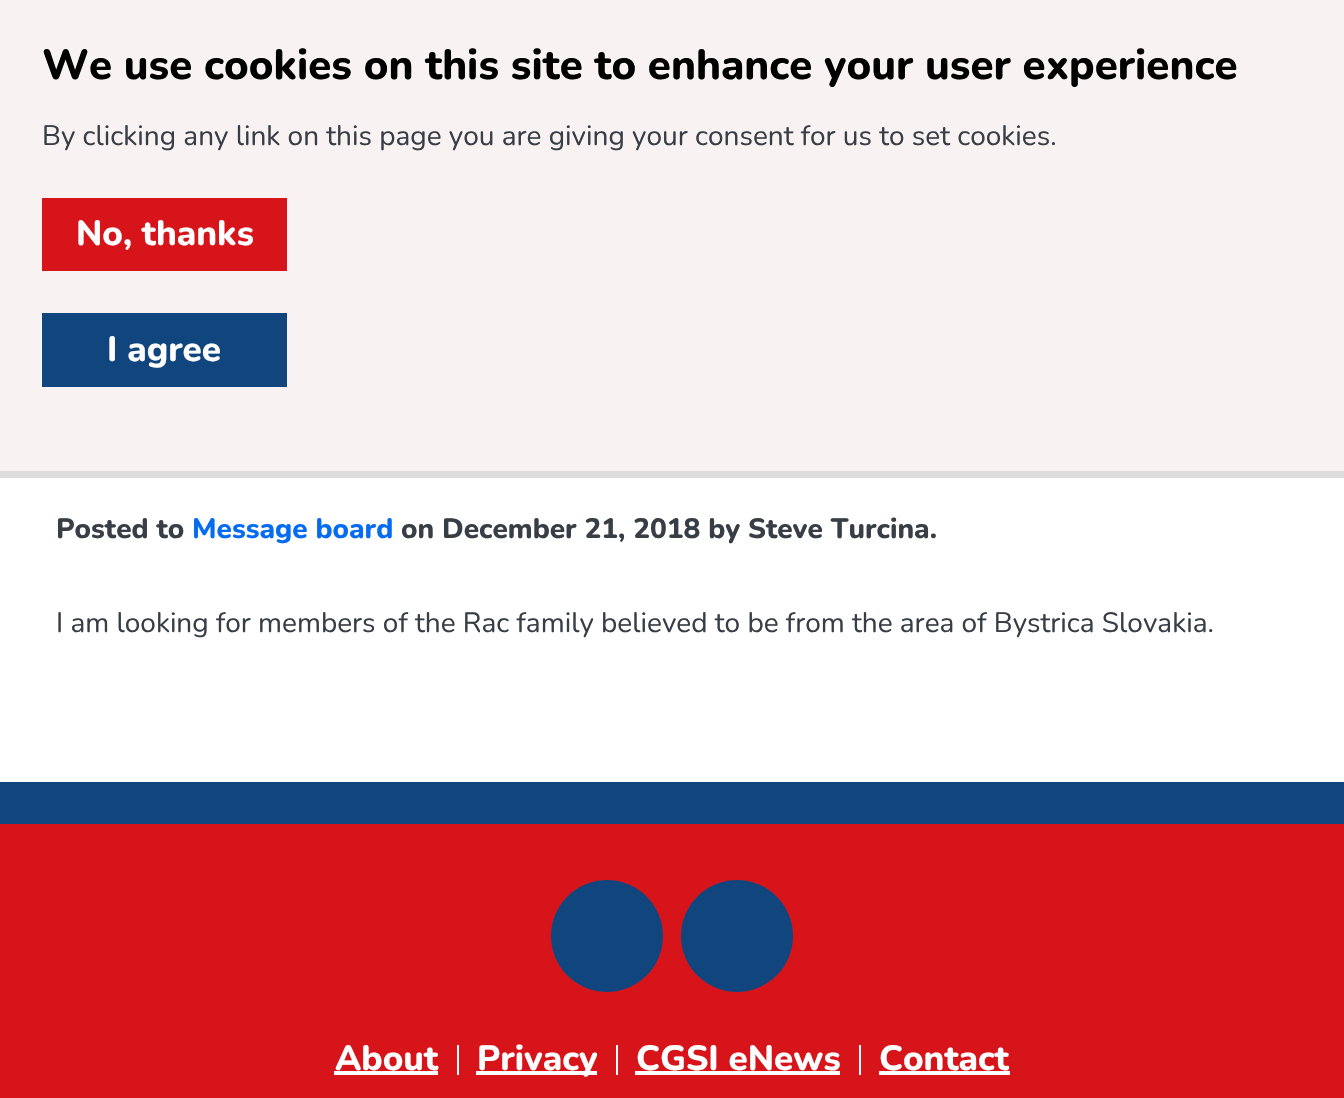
#include "include/core/SkBlurTypes.h"
#include "include/core/SkCanvas.h"
#include "include/core/SkData.h"
#include "include/core/SkFont.h"
#include "include/core/SkFontMgr.h"
#include "include/core/SkImage.h"
#include "include/core/SkMaskFilter.h"
#include "include/core/SkPaint.h"
#include "include/core/SkPathBuilder.h"
#include "include/core/SkTextBlob.h"
#include "include/effects/SkDashPathEffect.h"
#include "include/effects/SkGradientShader.h"
#include "include/utils/SkParsePath.h"

extern sk_sp<SkFontMgr> fontMgr;

void draw(SkCanvas* canvas) {
  SkPaint p;
  p.setAntiAlias(true);
  canvas->clear(SK_ColorWHITE);
  p.setColor(SkColorSetRGB(248, 242, 242));
  canvas->drawRect(SkRect::MakeLTRB(0, 0, 1344, 471), p);
  p.setColor(SkColorSetRGB(221, 221, 221));
  canvas->drawRect(SkRect::MakeLTRB(0, 471, 1344, 478), p);
  p.setColor(SkColorSetRGB(215, 20, 26));
  canvas->drawRect(SkRect::MakeLTRB(42, 198, 287, 271), p);
  p.setColor(SkColorSetRGB(17, 69, 126));
  canvas->drawRect(SkRect::MakeLTRB(42, 313, 287, 387), p);
  p.setColor(SkColorSetRGB(215, 20, 26));
  canvas->drawRect(SkRect::MakeLTRB(0, 824, 1344, 1098), p);
  p.setColor(SkColorSetRGB(17, 69, 126));
  canvas->drawRect(SkRect::MakeLTRB(0, 782, 1344, 824), p);
  canvas->drawCircle(607, 936, 56, p);
  canvas->drawCircle(737, 936, 56, p);
  p.setColor(SK_ColorWHITE);
  canvas->drawRect(SkRect::MakeLTRB(334, 1071, 438, 1075), p);
  canvas->drawRect(SkRect::MakeLTRB(457, 1045, 459, 1075), p);
  canvas->drawRect(SkRect::MakeLTRB(476, 1071, 597, 1075), p);
  canvas->drawRect(SkRect::MakeLTRB(616, 1045, 618, 1075), p);
  canvas->drawRect(SkRect::MakeLTRB(635, 1071, 840, 1075), p);
  canvas->drawRect(SkRect::MakeLTRB(859, 1045, 861, 1075), p);
  canvas->drawRect(SkRect::MakeLTRB(879, 1071, 1010, 1075), p);
  SkFont font1(fontMgr->matchFamilyStyle("Nunito", SkFontStyle(800, SkFontStyle::kNormal_Width, SkFontStyle::kUpright_Slant)), 42);
  font1.setSubpixel(true);
  p.setColor(SK_ColorBLACK);
  canvas->drawString("We use cookies on this site to enhance your user experience", 42, 79, font1, p);
  SkFont font2(fontMgr->matchFamilyStyle("Nunito", SkFontStyle::Normal()), 28);
  font2.setSubpixel(true);
  p.setColor(SkColorSetRGB(56, 62, 70));
  canvas->drawString("By clicking any link on this page you are giving your consent for us to set cookies.", 42, 145, font2, p);
  SkFont font3(fontMgr->matchFamilyStyle("Nunito", SkFontStyle(800, SkFontStyle::kNormal_Width, SkFontStyle::kUpright_Slant)), 35);
  font3.setSubpixel(true);
  p.setColor(SK_ColorWHITE);
  canvas->drawString("No, thanks", 76, 245, font3, p);
  canvas->drawString("I agree", 107, 361, font3, p);
  SkFont font4(fontMgr->matchFamilyStyle("Nunito", SkFontStyle(800, SkFontStyle::kNormal_Width, SkFontStyle::kUpright_Slant)), 28);
  font4.setSubpixel(true);
  p.setColor(SkColorSetRGB(56, 62, 70));
  canvas->drawString("Posted to", 56, 538, font4, p);
  p.setColor(SkColorSetRGB(5, 108, 242));
  canvas->drawString("Message board", 192, 538, font4, p);
  p.setColor(SkColorSetRGB(56, 62, 70));
  canvas->drawString("on December 21, 2018 by Steve Turcina.", 401, 538, font4, p);
  canvas->drawString("I am looking for members of the Rac family believed to be from the area of Bystrica Slovakia.", 56, 632, font2, p);
  p.setColor(SK_ColorWHITE);
  canvas->drawString("About", 335, 1070, font3, p);
  canvas->drawString("Privacy", 477, 1070, font3, p);
  canvas->drawString("CGSI eNews", 636, 1070, font3, p);
  canvas->drawString("Contact", 879, 1070, font3, p);
}
